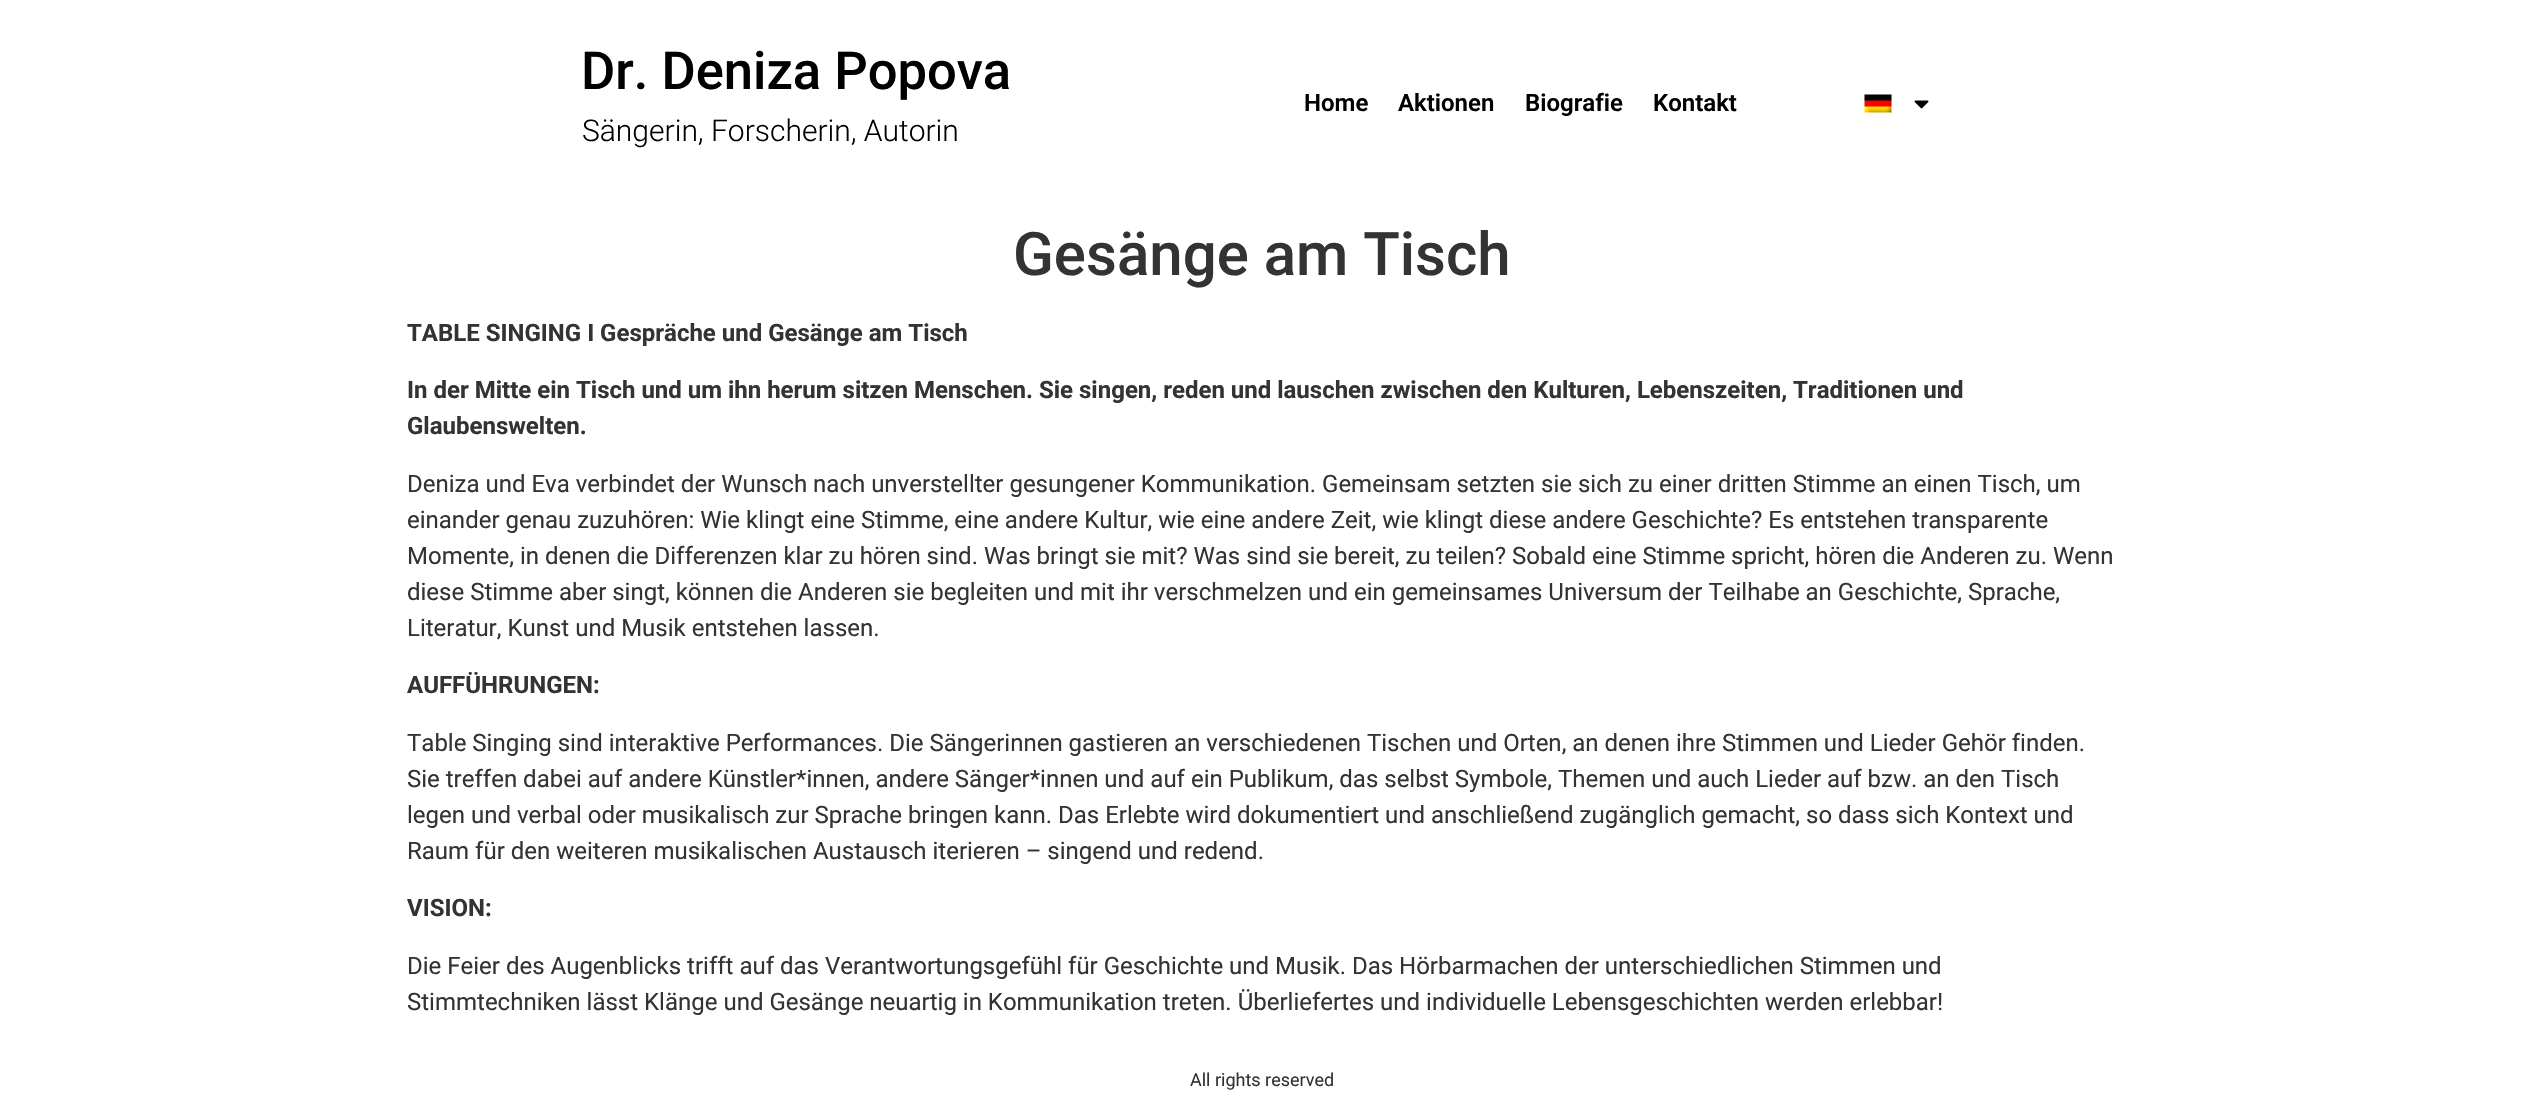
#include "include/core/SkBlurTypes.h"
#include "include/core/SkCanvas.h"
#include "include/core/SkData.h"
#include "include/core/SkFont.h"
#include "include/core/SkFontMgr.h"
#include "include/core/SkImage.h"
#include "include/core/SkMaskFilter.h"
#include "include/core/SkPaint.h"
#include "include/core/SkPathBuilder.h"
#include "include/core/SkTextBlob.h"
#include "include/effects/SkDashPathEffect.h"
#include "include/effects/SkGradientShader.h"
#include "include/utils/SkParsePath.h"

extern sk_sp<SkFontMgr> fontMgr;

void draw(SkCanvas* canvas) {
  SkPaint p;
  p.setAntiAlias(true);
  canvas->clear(SK_ColorWHITE);
  canvas->drawImageRect(SkImages::DeferredFromEncodedData(SkData::MakeFromFileName("images/1.png")), SkRect::MakeLTRB(1864, 94, 1892, 113), SkSamplingOptions());
  canvas->drawImageRect(SkImages::DeferredFromEncodedData(SkData::MakeFromFileName("images/2.png")), SkRect::MakeLTRB(1914, 100, 1929, 109), SkSamplingOptions());
  SkFont font1(fontMgr->matchFamilyStyle("Roboto", SkFontStyle(500, SkFontStyle::kNormal_Width, SkFontStyle::kUpright_Slant)), 52.5f);
  font1.setSubpixel(true);
  p.setColor(SK_ColorBLACK);
  canvas->drawString("Dr. Deniza Popova", 581, 89, font1, p);
  SkFont font2(fontMgr->matchFamilyStyle("Roboto", SkFontStyle(300, SkFontStyle::kNormal_Width, SkFontStyle::kUpright_Slant)), 30);
  font2.setSubpixel(true);
  canvas->drawString("Sängerin, Forscherin, Autorin", 582, 141, font2, p);
  SkFont font3(fontMgr->matchFamilyStyle("Roboto", SkFontStyle(600, SkFontStyle::kNormal_Width, SkFontStyle::kUpright_Slant)), 24);
  font3.setSubpixel(true);
  canvas->drawString("Home", 1304, 111, font3, p);
  canvas->drawString("Aktionen", 1398, 111, font3, p);
  canvas->drawString("Biografie", 1525, 111, font3, p);
  canvas->drawString("Kontakt", 1653, 111, font3, p);
  SkFont font4(fontMgr->matchFamilyStyle("Roboto", SkFontStyle(500, SkFontStyle::kNormal_Width, SkFontStyle::kUpright_Slant)), 60);
  font4.setSubpixel(true);
  p.setColor(SkColorSetRGB(51, 51, 51));
  canvas->drawString("Gesänge am Tisch", 1013, 275, font4, p);
  SkFont font5(fontMgr->matchFamilyStyle("Roboto", SkFontStyle::Bold()), 24);
  font5.setSubpixel(true);
  canvas->drawString("TABLE SINGING I Gespräche und Gesänge am Tisch", 407, 341, font5, p);
  canvas->drawString("In der Mitte ein Tisch und um ihn herum sitzen Menschen. Sie singen, reden und lauschen zwischen den Kulturen, Lebenszeiten, Traditionen und", 407, 398, font5, p);
  canvas->drawString("Glaubenswelten.", 407, 434, font5, p);
  SkFont font6(fontMgr->matchFamilyStyle("Roboto", SkFontStyle::Normal()), 24);
  font6.setSubpixel(true);
  canvas->drawString("Deniza und Eva verbindet der Wunsch nach unverstellter gesungener Kommunikation. Gemeinsam setzten sie sich zu einer dritten Stimme an einen Tisch, um", 407, 492, font6, p);
  canvas->drawString("einander genau zuzuhören: Wie klingt eine Stimme, eine andere Kultur, wie eine andere Zeit, wie klingt diese andere Geschichte? Es entstehen transparente", 407, 528, font6, p);
  canvas->drawString("Momente, in denen die Differenzen klar zu hören sind. Was bringt sie mit? Was sind sie bereit, zu teilen? Sobald eine Stimme spricht, hören die Anderen zu. Wenn", 407, 564, font6, p);
  canvas->drawString("diese Stimme aber singt, können die Anderen sie begleiten und mit ihr verschmelzen und ein gemeinsames Universum der Teilhabe an Geschichte, Sprache,", 407, 600, font6, p);
  canvas->drawString("Literatur, Kunst und Musik entstehen lassen.", 407, 636, font6, p);
  canvas->drawString("AUFFÜHRUNGEN:", 407, 693, font5, p);
  canvas->drawString("Table Singing sind interaktive Performances. Die Sängerinnen gastieren an verschiedenen Tischen und Orten, an denen ihre Stimmen und Lieder Gehör finden.", 407, 751, font6, p);
  canvas->drawString("Sie treffen dabei auf andere Künstler*innen, andere Sänger*innen und auf ein Publikum, das selbst Symbole, Themen und auch Lieder auf bzw. an den Tisch", 407, 787, font6, p);
  canvas->drawString("legen und verbal oder musikalisch zur Sprache bringen kann. Das Erlebte wird dokumentiert und anschließend zugänglich gemacht, so dass sich Kontext und", 407, 823, font6, p);
  canvas->drawString("Raum für den weiteren musikalischen Austausch iterieren – singend und redend.", 407, 859, font6, p);
  canvas->drawString("VISION:", 407, 916, font5, p);
  canvas->drawString("Die Feier des Augenblicks trifft auf das Verantwortungsgefühl für Geschichte und Musik. Das Hörbarmachen der unterschiedlichen Stimmen und", 407, 974, font6, p);
  canvas->drawString("Stimmtechniken lässt Klänge und Gesänge neuartig in Kommunikation treten. Überliefertes und individuelle Lebensgeschichten werden erlebbar!", 407, 1010, font6, p);
  SkFont font7(fontMgr->matchFamilyStyle("Roboto", SkFontStyle::Normal()), 18);
  font7.setSubpixel(true);
  canvas->drawString("All rights reserved", 1190, 1086, font7, p);
}
